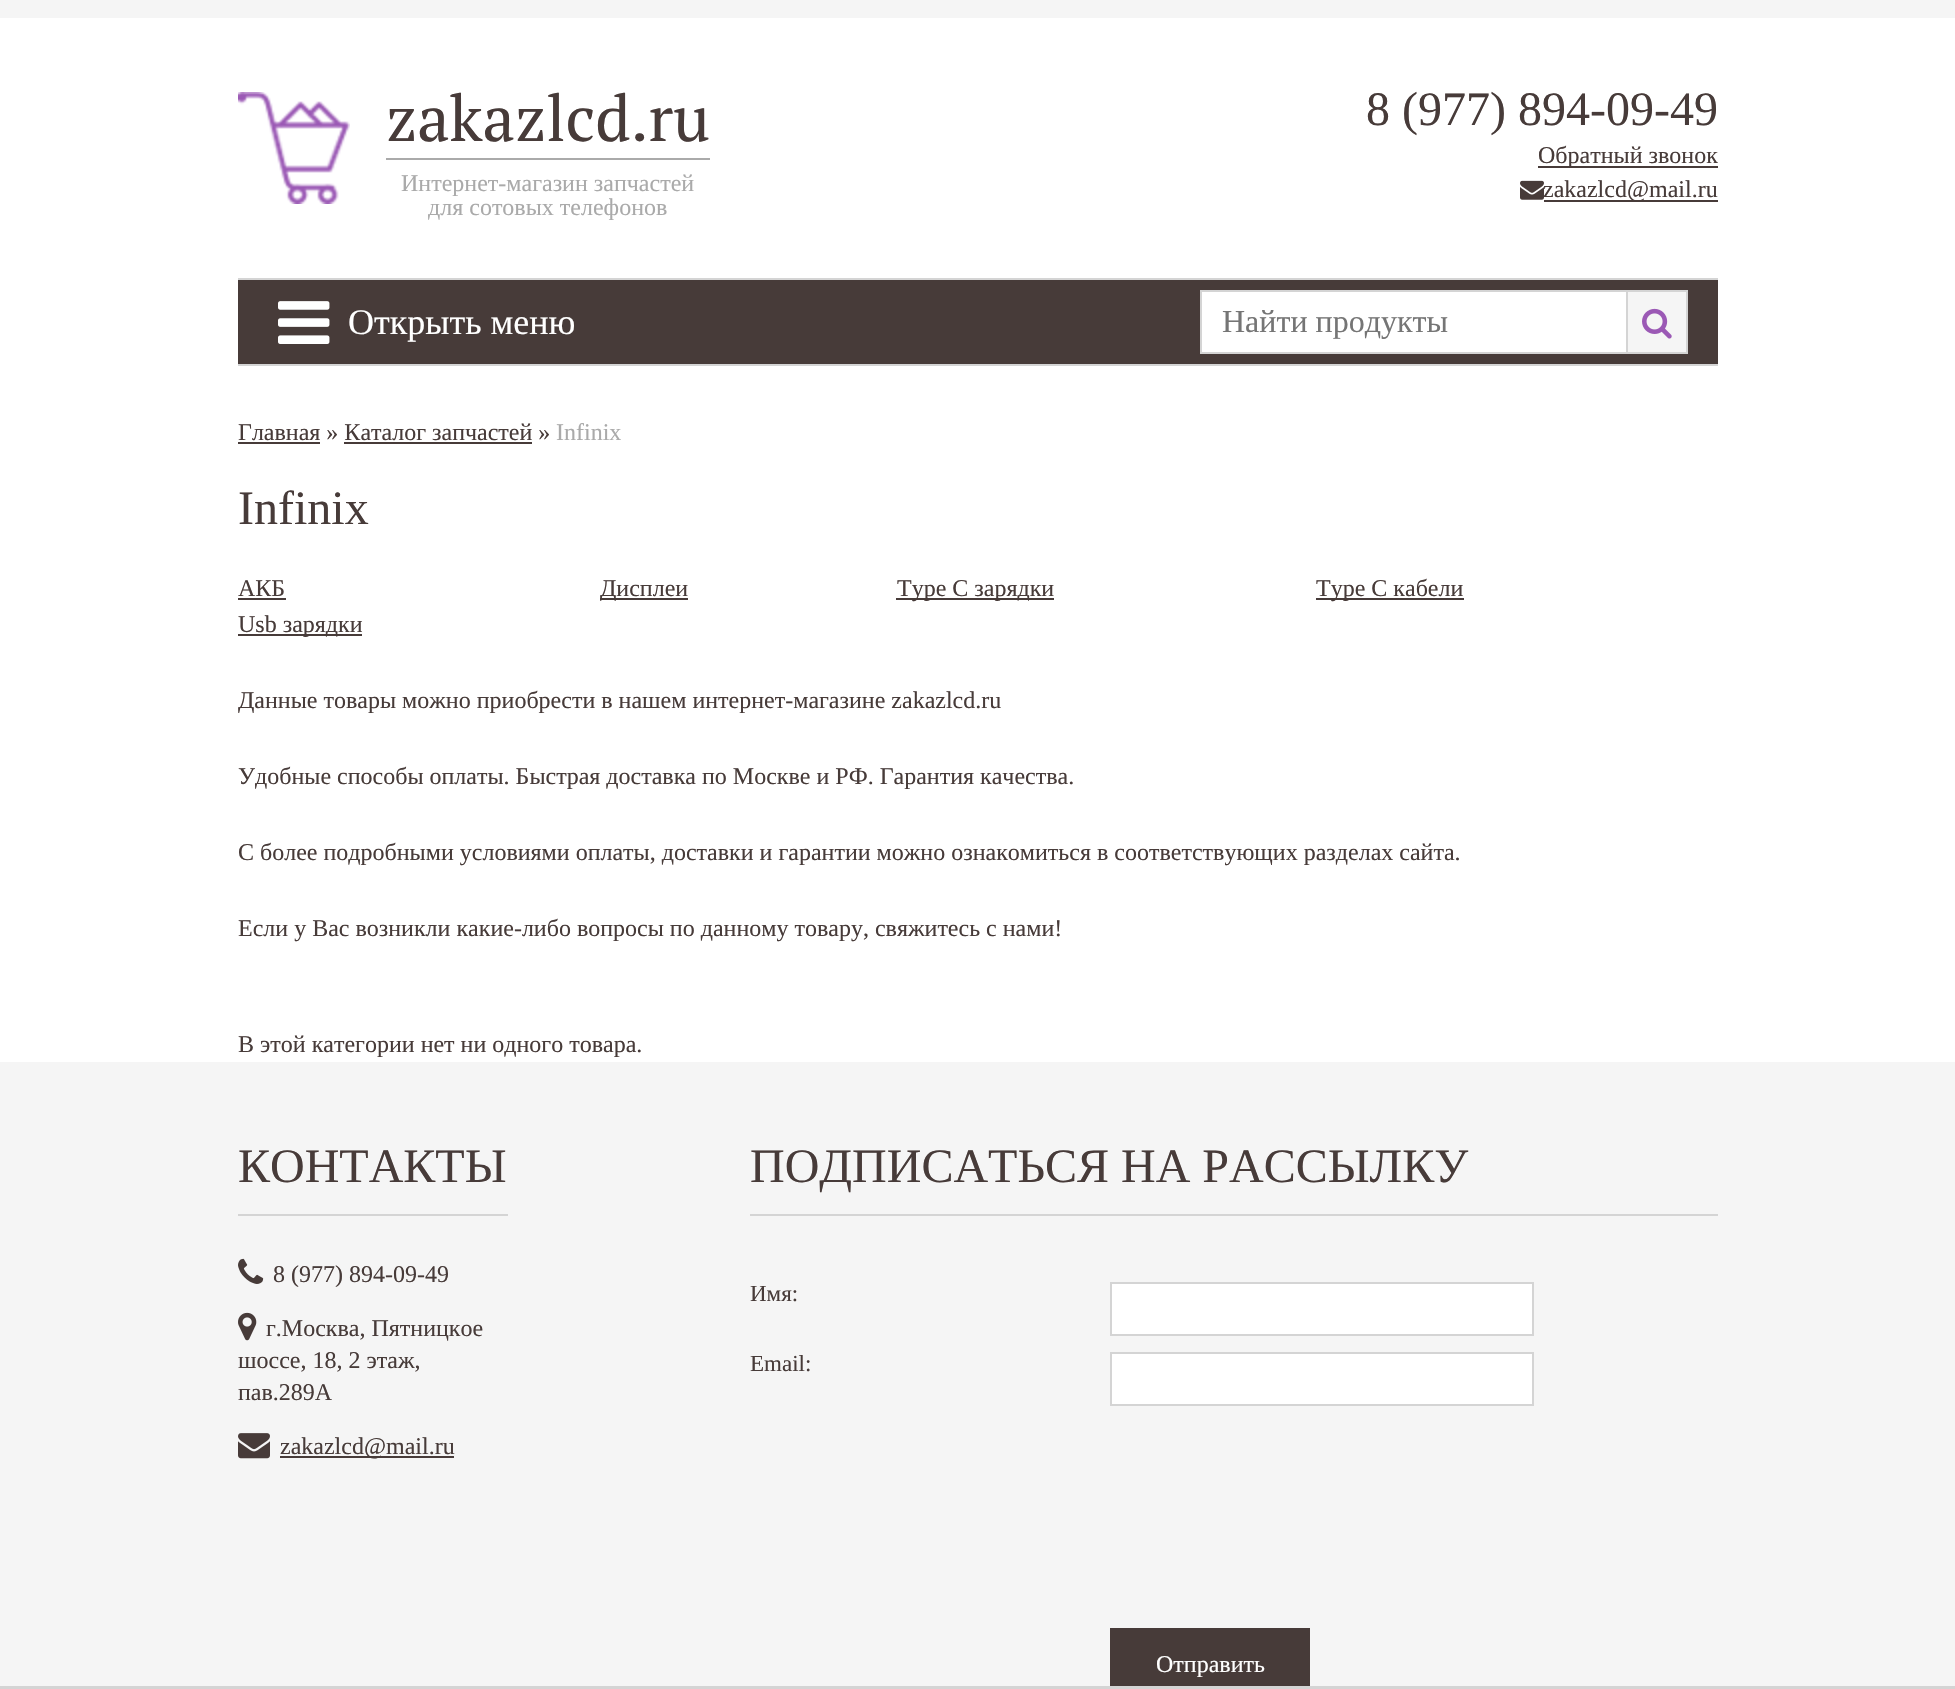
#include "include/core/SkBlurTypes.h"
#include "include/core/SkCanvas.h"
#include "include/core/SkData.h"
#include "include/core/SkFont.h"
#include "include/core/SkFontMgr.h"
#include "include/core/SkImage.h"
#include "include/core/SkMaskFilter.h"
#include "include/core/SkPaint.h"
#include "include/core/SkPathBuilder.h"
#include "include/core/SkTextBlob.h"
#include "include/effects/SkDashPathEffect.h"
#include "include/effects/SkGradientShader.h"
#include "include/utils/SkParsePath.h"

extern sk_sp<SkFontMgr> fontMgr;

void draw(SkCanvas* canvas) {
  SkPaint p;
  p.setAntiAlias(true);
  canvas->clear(SK_ColorWHITE);
  p.setColor(SkColorSetRGB(245, 245, 245));
  canvas->drawRect(SkRect::MakeLTRB(0, 0, 1955, 18), p);
  p.setColor(SkColorSetRGB(155, 89, 181));
  canvas->drawRect(SkRect::MakeLTRB(238, 92, 350, 204), p);
  canvas->drawImageRect(SkImages::DeferredFromEncodedData(SkData::MakeFromFileName("images/1.png")), SkRect::MakeLTRB(238, 92, 350, 204), SkSamplingOptions());
  p.setColor(SkColorSetRGB(170, 170, 170));
  canvas->drawRect(SkRect::MakeLTRB(386, 158, 710, 160), p);
  p.setColor(SkColorSetRGB(71, 59, 57));
  canvas->drawRect(SkRect::MakeLTRB(1538, 166, 1718, 168), p);
  canvas->drawImageRect(SkImages::DeferredFromEncodedData(SkData::MakeFromFileName("images/2.png")), SkRect::MakeLTRB(1520, 180, 1544, 200), SkSamplingOptions());
  canvas->drawRect(SkRect::MakeLTRB(1544, 200, 1718, 202), p);
  p.setColor(SkColorSetRGB(212, 212, 212));
  canvas->drawRect(SkRect::MakeLTRB(238, 278, 1718, 280), p);
  canvas->drawRect(SkRect::MakeLTRB(238, 364, 1718, 366), p);
  p.setColor(SkColorSetRGB(71, 59, 57));
  canvas->drawRect(SkRect::MakeLTRB(238, 280, 1718, 364), p);
  canvas->drawImageRect(SkImages::DeferredFromEncodedData(SkData::MakeFromFileName("images/3.png")), SkRect::MakeLTRB(278, 301, 330, 344), SkSamplingOptions());
  p.setColor(SK_ColorWHITE);
  canvas->drawRect(SkRect::MakeLTRB(1202, 292, 1626, 352), p);
  p.setColor(SkColorSetRGB(212, 212, 212));
  canvas->drawRect(SkRect::MakeLTRB(1200, 290, 1626, 292), p);
  canvas->drawRect(SkRect::MakeLTRB(1200, 352, 1626, 354), p);
  canvas->drawRect(SkRect::MakeLTRB(1200, 290, 1202, 354), p);
  p.setColor(SkColorSetRGB(245, 245, 245));
  canvas->drawRect(SkRect::MakeLTRB(1627, 291, 1687, 353), p);
  p.setStyle(SkPaint::kStroke_Style);
  p.setStrokeWidth(2);
  p.setColor(SkColorSetRGB(212, 212, 212));
  canvas->drawRect(SkRect::MakeLTRB(1627, 291, 1687, 353), p);
  canvas->drawImageRect(SkImages::DeferredFromEncodedData(SkData::MakeFromFileName("images/4.png")), SkRect::MakeLTRB(1642, 308, 1672, 339), SkSamplingOptions());
  p.setStyle(SkPaint::kFill_Style);
  p.setColor(SkColorSetRGB(71, 59, 57));
  canvas->drawRect(SkRect::MakeLTRB(238, 442, 320, 444), p);
  canvas->drawRect(SkRect::MakeLTRB(344, 442, 532, 444), p);
  canvas->drawRect(SkRect::MakeLTRB(238, 598, 286, 600), p);
  canvas->drawRect(SkRect::MakeLTRB(600, 598, 688, 600), p);
  canvas->drawRect(SkRect::MakeLTRB(896, 598, 1054, 600), p);
  canvas->drawRect(SkRect::MakeLTRB(1316, 598, 1464, 600), p);
  canvas->drawRect(SkRect::MakeLTRB(238, 634, 362, 636), p);
  p.setColor(SkColorSetRGB(245, 245, 245));
  canvas->drawRect(SkRect::MakeLTRB(0, 1062, 1955, 1686), p);
  p.setColor(SkColorSetRGB(212, 212, 212));
  canvas->drawRect(SkRect::MakeLTRB(238, 1214, 508, 1216), p);
  canvas->drawImageRect(SkImages::DeferredFromEncodedData(SkData::MakeFromFileName("images/5.png")), SkRect::MakeLTRB(238, 1258, 264, 1284), SkSamplingOptions());
  canvas->drawImageRect(SkImages::DeferredFromEncodedData(SkData::MakeFromFileName("images/6.png")), SkRect::MakeLTRB(238, 1312, 257, 1341), SkSamplingOptions());
  canvas->drawImageRect(SkImages::DeferredFromEncodedData(SkData::MakeFromFileName("images/7.png")), SkRect::MakeLTRB(238, 1433, 270, 1459), SkSamplingOptions());
  p.setColor(SkColorSetRGB(71, 59, 57));
  canvas->drawRect(SkRect::MakeLTRB(280, 1456, 454, 1458), p);
  p.setColor(SkColorSetRGB(212, 212, 212));
  canvas->drawRect(SkRect::MakeLTRB(750, 1214, 1718, 1216), p);
  p.setColor(SK_ColorWHITE);
  canvas->drawRect(SkRect::MakeLTRB(1111, 1283, 1533, 1335), p);
  p.setStyle(SkPaint::kStroke_Style);
  p.setColor(SkColorSetRGB(212, 212, 212));
  canvas->drawRect(SkRect::MakeLTRB(1111, 1283, 1533, 1335), p);
  p.setStyle(SkPaint::kFill_Style);
  p.setColor(SK_ColorWHITE);
  canvas->drawRect(SkRect::MakeLTRB(1111, 1353, 1533, 1405), p);
  p.setStyle(SkPaint::kStroke_Style);
  p.setColor(SkColorSetRGB(212, 212, 212));
  canvas->drawRect(SkRect::MakeLTRB(1111, 1353, 1533, 1405), p);
  p.setStyle(SkPaint::kFill_Style);
  p.setColor(SkColorSetRGB(71, 59, 57));
  canvas->drawRect(SkRect::MakeLTRB(1110, 1628, 1310, 1686), p);
  p.setColor(SkColorSetRGB(212, 212, 212));
  canvas->drawRect(SkRect::MakeLTRB(0, 1686, 1955, 1689), p);
  SkFont font1(fontMgr->matchFamilyStyle("PT Serif", SkFontStyle::Normal()), 64);
  font1.setSubpixel(true);
  p.setColor(SkColorSetRGB(71, 59, 57));
  canvas->drawString("zakazlcd.ru", 386, 141, font1, p);
  SkFont font2(fontMgr->matchFamilyStyle("Liberation Serif", SkFontStyle::Normal()), 24);
  font2.setSubpixel(true);
  p.setColor(SkColorSetRGB(170, 170, 170));
  canvas->drawString("Интернет-магазин запчастей", 401, 191, font2, p);
  canvas->drawString("для сотовых телефонов", 428, 215, font2, p);
  SkFont font3(fontMgr->matchFamilyStyle("Liberation Serif", SkFontStyle::Normal()), 48);
  font3.setSubpixel(true);
  p.setColor(SkColorSetRGB(71, 59, 57));
  canvas->drawString("8 (977) 894-09-49", 1366, 125, font3, p);
  canvas->drawString("Обратный звонок", 1538, 163, font2, p);
  canvas->drawString("zakazlcd@mail.ru", 1543, 197, font2, p);
  SkFont font4(fontMgr->matchFamilyStyle("Liberation Serif", SkFontStyle::Normal()), 36);
  font4.setSubpixel(true);
  p.setColor(SK_ColorWHITE);
  canvas->drawString("Открыть меню", 348, 334, font4, p);
  SkFont font5(fontMgr->matchFamilyStyle("Liberation Serif", SkFontStyle::Normal()), 32);
  font5.setSubpixel(true);
  p.setColor(SkColorSetRGB(117, 117, 117));
  canvas->drawString("Найти продукты", 1222, 332, font5, p);
  p.setColor(SkColorSetRGB(71, 59, 57));
  canvas->drawString("Главная » Каталог запчастей »", 238, 440, font2, p);
  p.setColor(SkColorSetRGB(170, 170, 170));
  canvas->drawString("Infinix", 556, 440, font2, p);
  p.setColor(SkColorSetRGB(71, 59, 57));
  canvas->drawString("Infinix", 238, 524, font3, p);
  canvas->drawString("АКБ", 238, 596, font2, p);
  canvas->drawString("Дисплеи", 600, 596, font2, p);
  canvas->drawString("Type C зарядки", 897, 596, font2, p);
  canvas->drawString("Type C кабели", 1316, 596, font2, p);
  canvas->drawString("Usb зарядки", 238, 632, font2, p);
  canvas->drawString("Данные товары можно приобрести в нашем интернет-магазине zakazlcd.ru", 238, 708, font2, p);
  canvas->drawString("Удобные способы оплаты. Быстрая доставка по Москве и РФ. Гарантия качества.", 238, 784, font2, p);
  canvas->drawString("С более подробными условиями оплаты, доставки и гарантии можно ознакомиться в соответствующих разделах сайта.", 238, 860, font2, p);
  canvas->drawString("Если у Вас возникли какие-либо вопросы по данному товару, свяжитесь с нами!", 238, 936, font2, p);
  canvas->drawString("В этой категории нет ни одного товара.", 238, 1052, font2, p);
  canvas->drawString("КОНТАКТЫ", 238, 1182, font3, p);
  canvas->drawString("8 (977) 894-09-49", 273, 1282, font2, p);
  canvas->drawString("г.Москва, Пятницкое", 266, 1336, font2, p);
  canvas->drawString("шоссе, 18, 2 этаж,", 238, 1368, font2, p);
  canvas->drawString("пав.289А", 238, 1400, font2, p);
  canvas->drawString("zakazlcd@mail.ru", 280, 1454, font2, p);
  canvas->drawString("ПОДПИСАТЬСЯ НА РАССЫЛКУ", 750, 1182, font3, p);
  SkFont font6(fontMgr->matchFamilyStyle("Liberation Serif", SkFontStyle::Normal()), 23);
  font6.setSubpixel(true);
  canvas->drawString("Имя:", 750, 1301, font6, p);
  canvas->drawString("Email:", 750, 1371, font6, p);
  p.setColor(SK_ColorWHITE);
  canvas->drawString("Отправить", 1156, 1672, font2, p);
}
